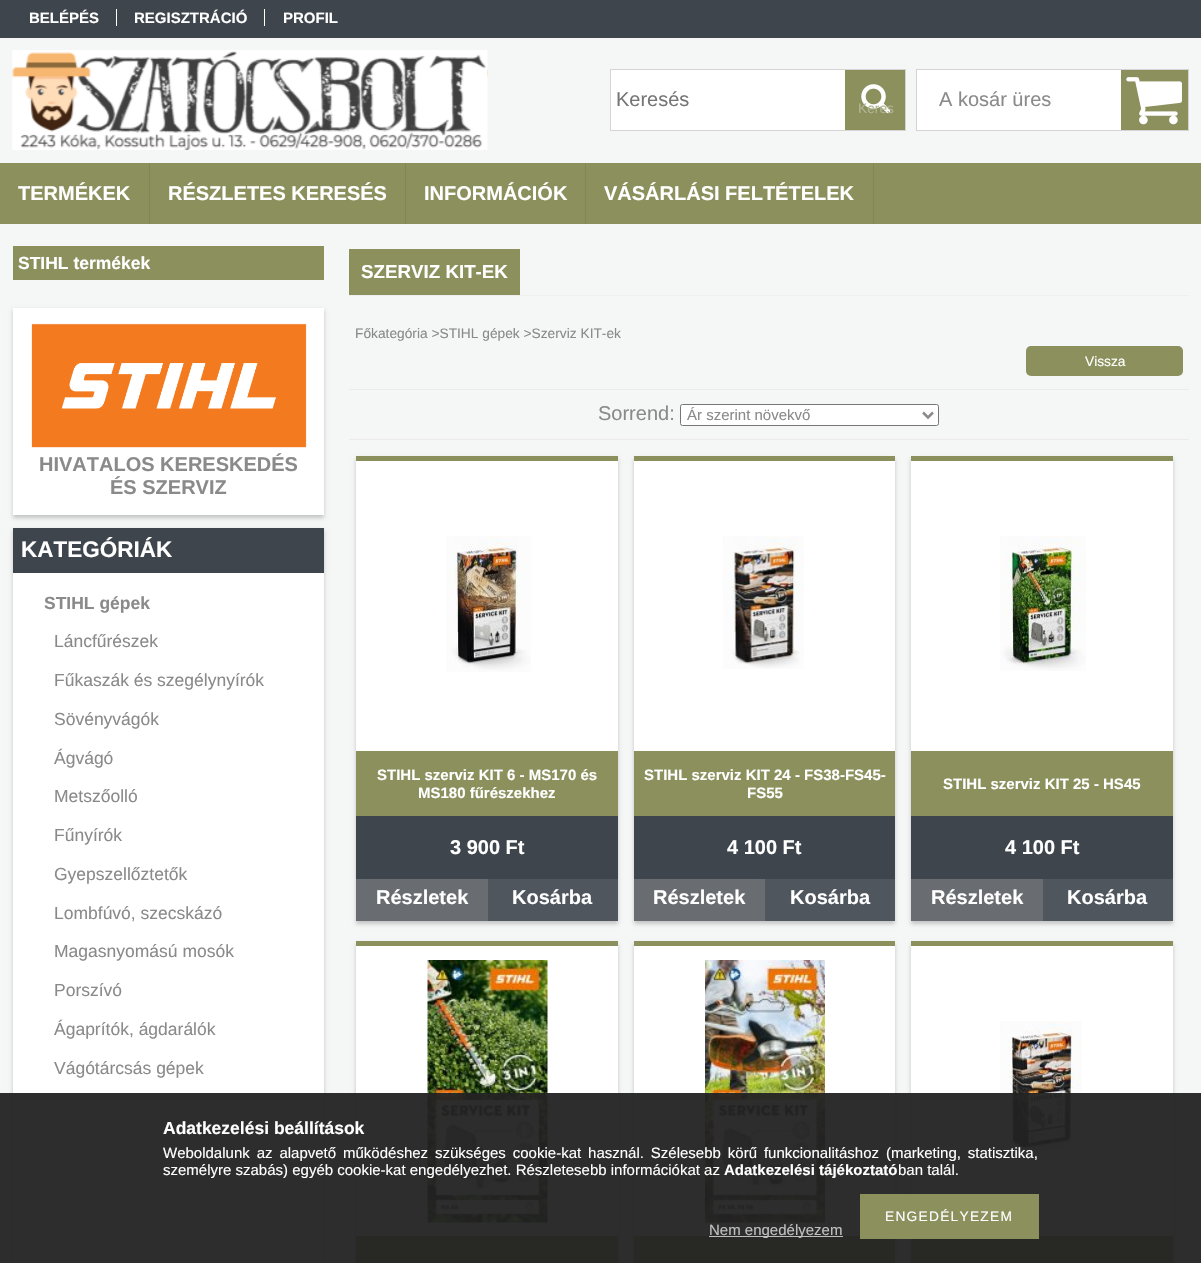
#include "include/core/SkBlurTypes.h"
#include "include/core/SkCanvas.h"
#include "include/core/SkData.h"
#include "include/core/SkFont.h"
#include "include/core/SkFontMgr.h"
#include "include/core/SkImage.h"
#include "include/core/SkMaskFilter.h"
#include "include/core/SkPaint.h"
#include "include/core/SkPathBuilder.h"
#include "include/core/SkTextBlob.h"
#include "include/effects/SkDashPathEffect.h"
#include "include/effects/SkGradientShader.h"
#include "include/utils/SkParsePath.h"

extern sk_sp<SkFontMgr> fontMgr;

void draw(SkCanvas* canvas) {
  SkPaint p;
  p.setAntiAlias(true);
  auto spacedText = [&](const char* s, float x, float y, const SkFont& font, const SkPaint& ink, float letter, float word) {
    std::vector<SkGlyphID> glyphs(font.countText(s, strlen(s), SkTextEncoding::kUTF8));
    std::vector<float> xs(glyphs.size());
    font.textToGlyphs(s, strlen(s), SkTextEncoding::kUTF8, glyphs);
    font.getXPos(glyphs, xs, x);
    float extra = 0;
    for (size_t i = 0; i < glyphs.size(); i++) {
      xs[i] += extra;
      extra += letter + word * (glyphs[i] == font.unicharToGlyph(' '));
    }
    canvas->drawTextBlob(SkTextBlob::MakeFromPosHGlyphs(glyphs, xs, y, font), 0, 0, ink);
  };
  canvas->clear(SkColorSetRGB(245, 246, 246));
  p.setColor(SkColorSetRGB(62, 69, 76));
  canvas->drawRect(SkRect::MakeLTRB(0, 0, 1201, 38), p);
  p.setColor(SK_ColorWHITE);
  canvas->drawRect(SkRect::MakeLTRB(116, 9, 117, 26), p);
  canvas->drawRect(SkRect::MakeLTRB(264, 9, 265, 26), p);
  canvas->drawImageRect(SkImages::DeferredFromEncodedData(SkData::MakeFromFileName("images/1.png")), SkRect::MakeLTRB(12, 50, 488, 150), SkSamplingOptions());
  canvas->drawImageRect(SkImages::DeferredFromEncodedData(SkData::MakeFromFileName("images/2.png")), SkRect::MakeLTRB(487, 69, 488, 77), SkSamplingOptions());
  canvas->drawRect(SkRect::MakeLTRB(611, 70, 845, 130), p);
  p.setStyle(SkPaint::kStroke_Style);
  p.setStrokeWidth(1);
  p.setColor(SkColorSetRGB(212, 212, 212));
  canvas->drawRect(SkRect::MakeLTRB(610.5f, 69.5f, 905.5f, 130.5f), p);
  p.setStyle(SkPaint::kFill_Style);
  p.setColor(SkColorSetRGB(139, 144, 93));
  canvas->drawRect(SkRect::MakeLTRB(845, 70, 905, 130), p);
  canvas->drawImageRect(SkImages::DeferredFromEncodedData(SkData::MakeFromFileName("images/3.png")), SkRect::MakeLTRB(861, 84, 891, 114), SkSamplingOptions());
  p.setColor(SK_ColorWHITE);
  canvas->drawRect(SkRect::MakeLTRB(917, 70, 1121, 130), p);
  p.setStyle(SkPaint::kStroke_Style);
  p.setColor(SkColorSetRGB(212, 212, 212));
  canvas->drawRect(SkRect::MakeLTRB(916.5f, 69.5f, 1188.5f, 130.5f), p);
  p.setStyle(SkPaint::kFill_Style);
  p.setColor(SkColorSetRGB(139, 144, 93));
  canvas->drawRect(SkRect::MakeLTRB(1121, 70, 1188, 130), p);
  canvas->drawImageRect(SkImages::DeferredFromEncodedData(SkData::MakeFromFileName("images/4.png")), SkRect::MakeLTRB(1126, 77, 1182, 125), SkSamplingOptions());
  canvas->drawRect(SkRect::MakeLTRB(0, 163, 1201, 224), p);
  p.setColor(SkColorSetARGB(18, 0, 0, 0));
  canvas->drawRect(SkRect::MakeLTRB(149, 163, 150, 224), p);
  canvas->drawRect(SkRect::MakeLTRB(405, 163, 406, 224), p);
  canvas->drawRect(SkRect::MakeLTRB(585, 163, 586, 224), p);
  canvas->drawRect(SkRect::MakeLTRB(873, 163, 874, 224), p);
  p.setColor(SkColorSetRGB(139, 144, 93));
  canvas->drawRect(SkRect::MakeLTRB(13, 246, 324, 280), p);
  p.setColor(SkColorSetARGB(51, 0, 0, 0));
  p.setMaskFilter(SkMaskFilter::MakeBlur(kNormal_SkBlurStyle, 2));
  canvas->drawRect(SkRect::MakeLTRB(13, 310, 324, 518), p);
  p.setMaskFilter(nullptr);
  p.setColor(SK_ColorWHITE);
  canvas->drawRect(SkRect::MakeLTRB(13, 308, 324, 515), p);
  canvas->drawImageRect(SkImages::DeferredFromEncodedData(SkData::MakeFromFileName("images/5.png")), SkRect::MakeLTRB(31, 323, 307, 448), SkSamplingOptions());
  p.setColor(SkColorSetARGB(51, 0, 0, 0));
  p.setMaskFilter(SkMaskFilter::MakeBlur(kNormal_SkBlurStyle, 2));
  canvas->drawRect(SkRect::MakeLTRB(13, 530, 324, 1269), p);
  p.setMaskFilter(nullptr);
  p.setColor(SkColorSetRGB(62, 69, 76));
  canvas->drawRect(SkRect::MakeLTRB(13, 528, 324, 573), p);
  p.setColor(SK_ColorWHITE);
  canvas->drawRect(SkRect::MakeLTRB(13, 573, 324, 1263), p);
  p.setColor(SkColorSetRGB(239, 239, 239));
  canvas->drawRect(SkRect::MakeLTRB(349, 295, 1189, 296), p);
  p.setColor(SkColorSetRGB(139, 144, 93));
  canvas->drawRect(SkRect::MakeLTRB(349, 249, 520, 295), p);
  canvas->drawRoundRect(SkRect::MakeLTRB(1026, 346, 1183, 376), 5, 5, p);
  p.setColor(SkColorSetRGB(236, 234, 234));
  canvas->drawRect(SkRect::MakeLTRB(349, 389, 1189, 390), p);
  p.setColor(SK_ColorWHITE);
  canvas->drawRoundRect(SkRect::MakeLTRB(680.5f, 404.5f, 938.5f, 425.5f), 2, 2, p);
  p.setStyle(SkPaint::kStroke_Style);
  p.setColor(SkColorSetRGB(118, 118, 118));
  canvas->drawRoundRect(SkRect::MakeLTRB(680.5f, 404.5f, 938.5f, 425.5f), 2, 2, p);
  p.setStrokeWidth(2.5f);
  p.setColor(SkColorSetRGB(139, 138, 138));
  canvas->drawPath(SkPathBuilder().moveTo(923, 412.5f).lineTo(928, 417.5f).lineTo(933, 412.5f).detach(), p);
  p.setStyle(SkPaint::kFill_Style);
  p.setColor(SkColorSetRGB(236, 234, 234));
  canvas->drawRect(SkRect::MakeLTRB(349, 439, 1189, 440), p);
  p.setColor(SkColorSetARGB(51, 0, 0, 0));
  p.setMaskFilter(SkMaskFilter::MakeBlur(kNormal_SkBlurStyle, 2));
  canvas->drawRect(SkRect::MakeLTRB(356, 459, 618, 924), p);
  p.setMaskFilter(nullptr);
  p.setColor(SkColorSetRGB(139, 144, 93));
  canvas->drawRect(SkRect::MakeLTRB(356, 456, 618, 461), p);
  p.setColor(SK_ColorWHITE);
  canvas->drawRect(SkRect::MakeLTRB(356, 461, 618, 751), p);
  canvas->drawImageRect(SkImages::DeferredFromEncodedData(SkData::MakeFromFileName("images/6.png")), SkRect::MakeLTRB(446, 536, 531, 672), SkSamplingOptions());
  p.setColor(SkColorSetRGB(139, 144, 93));
  canvas->drawRect(SkRect::MakeLTRB(356, 751, 618, 816), p);
  p.setColor(SkColorSetRGB(62, 69, 76));
  canvas->drawRect(SkRect::MakeLTRB(356, 816, 618, 879), p);
  p.setColor(SkColorSetRGB(105, 109, 113));
  canvas->drawRect(SkRect::MakeLTRB(356, 879, 488, 921), p);
  p.setColor(SkColorSetRGB(79, 86, 94));
  canvas->drawRect(SkRect::MakeLTRB(488, 879, 618, 921), p);
  p.setColor(SkColorSetARGB(51, 0, 0, 0));
  p.setMaskFilter(SkMaskFilter::MakeBlur(kNormal_SkBlurStyle, 2));
  canvas->drawRect(SkRect::MakeLTRB(634, 459, 895, 924), p);
  p.setMaskFilter(nullptr);
  p.setColor(SkColorSetRGB(139, 144, 93));
  canvas->drawRect(SkRect::MakeLTRB(634, 456, 895, 461), p);
  p.setColor(SK_ColorWHITE);
  canvas->drawRect(SkRect::MakeLTRB(634, 461, 895, 751), p);
  canvas->drawImageRect(SkImages::DeferredFromEncodedData(SkData::MakeFromFileName("images/7.png")), SkRect::MakeLTRB(723, 536, 804, 669), SkSamplingOptions());
  p.setColor(SkColorSetRGB(139, 144, 93));
  canvas->drawRect(SkRect::MakeLTRB(634, 751, 895, 816), p);
  p.setColor(SkColorSetRGB(62, 69, 76));
  canvas->drawRect(SkRect::MakeLTRB(634, 816, 895, 879), p);
  p.setColor(SkColorSetRGB(105, 109, 113));
  canvas->drawRect(SkRect::MakeLTRB(634, 879, 765, 921), p);
  p.setColor(SkColorSetRGB(79, 86, 94));
  canvas->drawRect(SkRect::MakeLTRB(765, 879, 895, 921), p);
  p.setColor(SkColorSetARGB(51, 0, 0, 0));
  p.setMaskFilter(SkMaskFilter::MakeBlur(kNormal_SkBlurStyle, 2));
  canvas->drawRect(SkRect::MakeLTRB(911, 459, 1173, 924), p);
  p.setMaskFilter(nullptr);
  p.setColor(SkColorSetRGB(139, 144, 93));
  canvas->drawRect(SkRect::MakeLTRB(911, 456, 1173, 461), p);
  p.setColor(SK_ColorWHITE);
  canvas->drawRect(SkRect::MakeLTRB(911, 461, 1173, 751), p);
  canvas->drawImageRect(SkImages::DeferredFromEncodedData(SkData::MakeFromFileName("images/8.png")), SkRect::MakeLTRB(1000, 536, 1086, 671), SkSamplingOptions());
  p.setColor(SkColorSetRGB(139, 144, 93));
  canvas->drawRect(SkRect::MakeLTRB(911, 751, 1173, 816), p);
  p.setColor(SkColorSetRGB(62, 69, 76));
  canvas->drawRect(SkRect::MakeLTRB(911, 816, 1173, 879), p);
  p.setColor(SkColorSetRGB(105, 109, 113));
  canvas->drawRect(SkRect::MakeLTRB(911, 879, 1043, 921), p);
  p.setColor(SkColorSetRGB(79, 86, 94));
  canvas->drawRect(SkRect::MakeLTRB(1043, 879, 1173, 921), p);
  p.setColor(SkColorSetARGB(51, 0, 0, 0));
  p.setMaskFilter(SkMaskFilter::MakeBlur(kNormal_SkBlurStyle, 2));
  canvas->drawRect(SkRect::MakeLTRB(356, 944, 618, 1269), p);
  p.setMaskFilter(nullptr);
  p.setColor(SkColorSetRGB(139, 144, 93));
  canvas->drawRect(SkRect::MakeLTRB(356, 941, 618, 946), p);
  p.setColor(SK_ColorWHITE);
  canvas->drawRect(SkRect::MakeLTRB(356, 946, 618, 1236), p);
  canvas->drawImageRect(SkImages::DeferredFromEncodedData(SkData::MakeFromFileName("images/9.png")), SkRect::MakeLTRB(427, 960, 548, 1223), SkSamplingOptions());
  p.setColor(SkColorSetRGB(139, 144, 93));
  canvas->drawRect(SkRect::MakeLTRB(356, 1236, 618, 1263), p);
  p.setColor(SkColorSetARGB(51, 0, 0, 0));
  p.setMaskFilter(SkMaskFilter::MakeBlur(kNormal_SkBlurStyle, 2));
  canvas->drawRect(SkRect::MakeLTRB(634, 944, 895, 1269), p);
  p.setMaskFilter(nullptr);
  p.setColor(SkColorSetRGB(139, 144, 93));
  canvas->drawRect(SkRect::MakeLTRB(634, 941, 895, 946), p);
  p.setColor(SK_ColorWHITE);
  canvas->drawRect(SkRect::MakeLTRB(634, 946, 895, 1236), p);
  canvas->drawImageRect(SkImages::DeferredFromEncodedData(SkData::MakeFromFileName("images/10.png")), SkRect::MakeLTRB(705, 960, 825, 1223), SkSamplingOptions());
  p.setColor(SkColorSetRGB(139, 144, 93));
  canvas->drawRect(SkRect::MakeLTRB(634, 1236, 895, 1263), p);
  p.setColor(SkColorSetARGB(51, 0, 0, 0));
  p.setMaskFilter(SkMaskFilter::MakeBlur(kNormal_SkBlurStyle, 2));
  canvas->drawRect(SkRect::MakeLTRB(911, 944, 1173, 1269), p);
  p.setMaskFilter(nullptr);
  p.setColor(SkColorSetRGB(139, 144, 93));
  canvas->drawRect(SkRect::MakeLTRB(911, 941, 1173, 946), p);
  p.setColor(SK_ColorWHITE);
  canvas->drawRect(SkRect::MakeLTRB(911, 946, 1173, 1236), p);
  canvas->drawImageRect(SkImages::DeferredFromEncodedData(SkData::MakeFromFileName("images/11.png")), SkRect::MakeLTRB(1000, 1021, 1082, 1154), SkSamplingOptions());
  p.setColor(SkColorSetRGB(139, 144, 93));
  canvas->drawRect(SkRect::MakeLTRB(911, 1236, 1173, 1263), p);
  p.setColor(SkColorSetARGB(242, 34, 34, 34));
  canvas->drawRect(SkRect::MakeLTRB(0, 1093, 1201, 1263), p);
  p.setColor(SkColorSetRGB(139, 144, 93));
  canvas->drawRect(SkRect::MakeLTRB(860, 1194, 1039, 1239), p);
  p.setColor(SkColorSetRGB(190, 190, 190));
  canvas->drawRect(SkRect::MakeLTRB(709, 1236, 843, 1237), p);
  SkFont font1(fontMgr->matchFamilyStyle("Liberation Sans", SkFontStyle::Bold()), 15);
  font1.setSubpixel(true);
  p.setColor(SK_ColorWHITE);
  canvas->drawString("BELÉPÉS", 29, 23, font1, p);
  canvas->drawString("REGISZTRÁCIÓ", 134, 23, font1, p);
  canvas->drawString("PROFIL", 283, 23, font1, p);
  SkFont font2(fontMgr->matchFamilyStyle("Liberation Sans", SkFontStyle::Normal()), 20);
  font2.setSubpixel(true);
  p.setColor(SkColorSetRGB(117, 117, 117));
  canvas->drawString("Keresés", 616, 106, font2, p);
  SkFont font3(fontMgr->matchFamilyStyle("Liberation Sans", SkFontStyle::Normal()), 13.75f);
  font3.setSubpixel(true);
  p.setColor(SkColorSetRGB(177, 181, 147));
  canvas->drawString("Keres", 858, 113, font3, p);
  p.setColor(SkColorSetRGB(139, 138, 138));
  canvas->drawString("A kosár üres", 939, 106, font2, p);
  SkFont font4(fontMgr->matchFamilyStyle("Liberation Sans", SkFontStyle::Bold()), 20);
  font4.setSubpixel(true);
  p.setColor(SK_ColorWHITE);
  canvas->drawString("TERMÉKEK", 18, 200, font4, p);
  canvas->drawString("RÉSZLETES KERESÉS", 168, 200, font4, p);
  canvas->drawString("INFORMÁCIÓK", 424, 200, font4, p);
  canvas->drawString("VÁSÁRLÁSI FELTÉTELEK", 604, 200, font4, p);
  SkFont font5(fontMgr->matchFamilyStyle("Liberation Sans", SkFontStyle::Bold()), 17.5f);
  font5.setSubpixel(true);
  canvas->drawString("STIHL termékek", 18, 269, font5, p);
  p.setColor(SkColorSetRGB(139, 138, 138));
  canvas->drawString("HIVATALOS KERESKEDÉS", 39, 471, font4, p);
  canvas->drawString("ÉS SZERVIZ", 110, 494, font4, p);
  SkFont font6(fontMgr->matchFamilyStyle("Liberation Sans", SkFontStyle::Bold()), 22.5f);
  font6.setSubpixel(true);
  p.setColor(SK_ColorWHITE);
  canvas->drawString("KATEGÓRIÁK", 21, 557, font6, p);
  p.setColor(SkColorSetRGB(139, 138, 138));
  canvas->drawString("STIHL gépek", 44, 609, font5, p);
  SkFont font7(fontMgr->matchFamilyStyle("Liberation Sans", SkFontStyle::Normal()), 17.5f);
  font7.setSubpixel(true);
  canvas->drawString("Láncfűrészek", 54, 647, font7, p);
  canvas->drawString("Fűkaszák és szegélynyírók", 54, 686, font7, p);
  canvas->drawString("Sövényvágók", 54, 725, font7, p);
  canvas->drawString("Ágvágó", 54, 764, font7, p);
  canvas->drawString("Metszőolló", 54, 802, font7, p);
  canvas->drawString("Fűnyírók", 54, 841, font7, p);
  canvas->drawString("Gyepszellőztetők", 54, 880, font7, p);
  canvas->drawString("Lombfúvó, szecskázó", 54, 919, font7, p);
  canvas->drawString("Magasnyomású mosók", 54, 957, font7, p);
  canvas->drawString("Porszívó", 54, 996, font7, p);
  canvas->drawString("Ágaprítók, ágdarálók", 54, 1035, font7, p);
  canvas->drawString("Vágótárcsás gépek", 54, 1074, font7, p);
  SkFont font8(fontMgr->matchFamilyStyle("Liberation Sans", SkFontStyle::Bold()), 18.75f);
  font8.setSubpixel(true);
  p.setColor(SK_ColorWHITE);
  canvas->drawString("SZERVIZ KIT-EK", 361, 278, font8, p);
  p.setColor(SkColorSetRGB(139, 138, 138));
  canvas->drawString("Főkategória >STIHL gépek >Szerviz KIT-ek", 355, 338, font3, p);
  p.setColor(SK_ColorWHITE);
  canvas->drawString("Vissza", 1085, 366, font3, p);
  p.setColor(SkColorSetRGB(139, 138, 138));
  canvas->drawString("Sorrend:", 598, 420, font2, p);
  SkFont font9(fontMgr->matchFamilyStyle("Liberation Sans", SkFontStyle::Normal()), 15);
  font9.setSubpixel(true);
  canvas->drawString("Ár szerint növekvő", 687, 420, font9, p);
  p.setColor(SK_ColorWHITE);
  canvas->drawString("STIHL szerviz KIT 6 - MS170 és", 377, 780, font1, p);
  canvas->drawString("MS180 fűrészekhez", 418, 798, font1, p);
  canvas->drawString("3 900 Ft", 450, 854, font4, p);
  canvas->drawString("Részletek", 376, 904, font4, p);
  canvas->drawString("Kosárba", 512, 904, font4, p);
  canvas->drawString("STIHL szerviz KIT 24 - FS38-FS45-", 644, 780, font1, p);
  canvas->drawString("FS55", 747, 798, font1, p);
  canvas->drawString("4 100 Ft", 727, 854, font4, p);
  canvas->drawString("Részletek", 653, 904, font4, p);
  canvas->drawString("Kosárba", 790, 904, font4, p);
  canvas->drawString("STIHL szerviz KIT 25 - HS45", 943, 789, font1, p);
  canvas->drawString("4 100 Ft", 1005, 854, font4, p);
  canvas->drawString("Részletek", 931, 904, font4, p);
  canvas->drawString("Kosárba", 1067, 904, font4, p);
  canvas->drawString("Adatkezelési beállítások", 163, 1134, font5, p);
  spacedText("Weboldalunk az alapvető működéshez szükséges cookie-kat használ. Szélesebb körű funkcionalitáshoz (marketing, statisztika,", 163, 1158, font9, p, 0, 2.75f);
  canvas->drawString("személyre szabás) egyéb cookie-kat engedélyezhet. Részletesebb információkat az", 163, 1175, font9, p);
  canvas->drawString("Adatkezelési tájékoztató", 724, 1175, font1, p);
  canvas->drawString("ban talál.", 898, 1175, font9, p);
  spacedText("ENGEDÉLYEZEM", 885, 1221, font3, p, 1.25f, 0);
  p.setColor(SkColorSetRGB(192, 192, 192));
  canvas->drawString("Nem engedélyezem", 709, 1235, font9, p);
}
